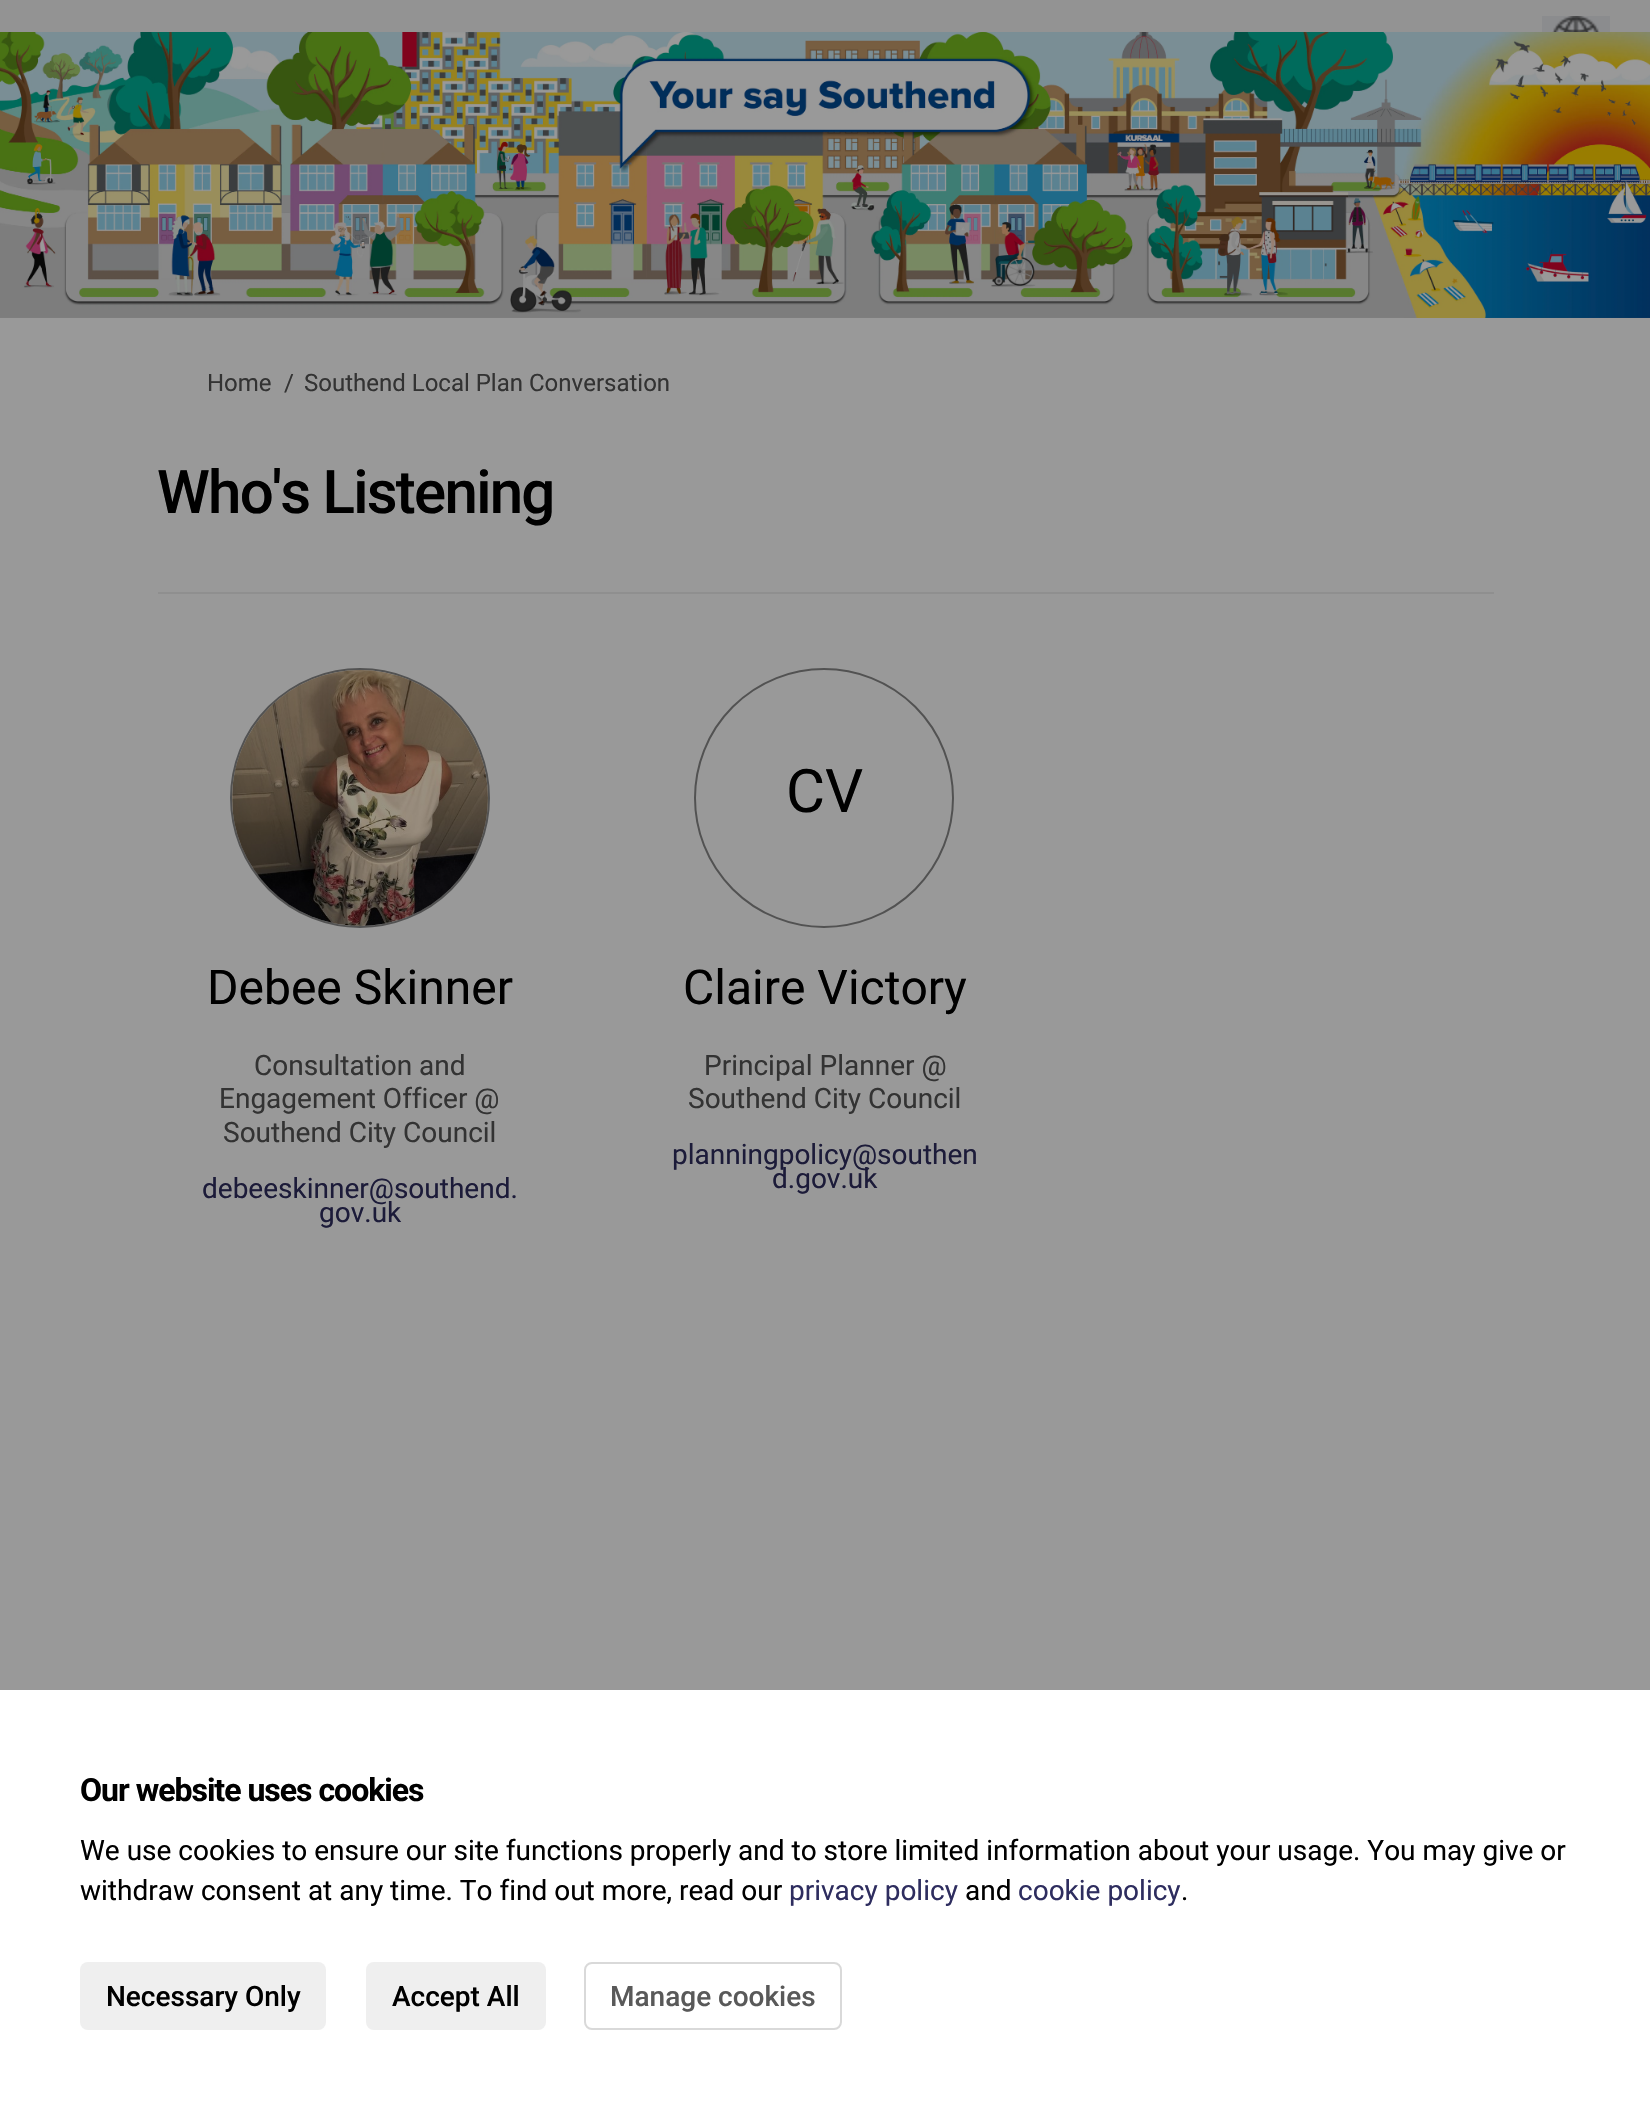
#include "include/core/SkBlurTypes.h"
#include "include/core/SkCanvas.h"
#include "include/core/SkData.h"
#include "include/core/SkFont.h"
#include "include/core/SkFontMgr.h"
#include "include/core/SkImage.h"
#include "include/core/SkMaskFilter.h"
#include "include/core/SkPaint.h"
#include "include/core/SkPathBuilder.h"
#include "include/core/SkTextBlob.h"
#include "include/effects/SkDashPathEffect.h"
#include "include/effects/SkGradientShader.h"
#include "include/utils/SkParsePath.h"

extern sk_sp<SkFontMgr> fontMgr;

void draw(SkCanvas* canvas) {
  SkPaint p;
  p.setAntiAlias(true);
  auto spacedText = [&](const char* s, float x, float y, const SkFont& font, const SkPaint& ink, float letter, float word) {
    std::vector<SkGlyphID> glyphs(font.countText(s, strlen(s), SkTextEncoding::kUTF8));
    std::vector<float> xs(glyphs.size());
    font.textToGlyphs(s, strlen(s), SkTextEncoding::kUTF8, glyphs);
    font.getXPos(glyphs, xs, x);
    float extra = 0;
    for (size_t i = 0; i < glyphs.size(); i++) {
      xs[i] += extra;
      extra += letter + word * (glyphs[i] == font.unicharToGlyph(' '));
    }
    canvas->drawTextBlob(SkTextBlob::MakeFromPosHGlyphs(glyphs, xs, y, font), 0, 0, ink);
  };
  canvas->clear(SkColorSetRGB(153, 153, 153));
  p.setColor(SkColorSetRGB(147, 147, 147));
  canvas->drawRect(SkRect::MakeLTRB(0, 0, 1650, 32), p);
  p.setColor(SkColorSetRGB(139, 140, 142));
  canvas->drawRect(SkRect::MakeLTRB(1542, 16, 1610, 32), p);
  canvas->drawImageRect(SkImages::DeferredFromEncodedData(SkData::MakeFromFileName("images/1.png")), SkRect::MakeLTRB(1552, 16, 1600, 32), SkSamplingOptions());
  canvas->drawImageRect(SkImages::DeferredFromEncodedData(SkData::MakeFromFileName("images/2.png")), SkRect::MakeLTRB(0, 32, 1650, 318), SkSamplingOptions());
  p.setColor(SkColorSetRGB(143, 143, 143));
  canvas->drawRect(SkRect::MakeLTRB(158, 592, 1494, 594), p);
  p.setStyle(SkPaint::kStroke_Style);
  p.setStrokeWidth(2);
  p.setColor(SkColorSetRGB(82, 82, 82));
  canvas->drawCircle(360, 798, 129, p);
  canvas->drawImageRect(SkImages::DeferredFromEncodedData(SkData::MakeFromFileName("images/3.png")), SkRect::MakeLTRB(232, 670, 488, 926), SkSamplingOptions());
  canvas->drawCircle(824, 798, 129, p);
  p.setStyle(SkPaint::kFill_Style);
  p.setColor(SK_ColorWHITE);
  canvas->drawRect(SkRect::MakeLTRB(0, 1690, 1650, 2110), p);
  p.setColor(SkColorSetRGB(239, 239, 239));
  canvas->drawRoundRect(SkRect::MakeLTRB(80, 1962, 326, 2030), 8, 8, p);
  canvas->drawRoundRect(SkRect::MakeLTRB(366, 1962, 546, 2030), 8, 8, p);
  p.setStyle(SkPaint::kStroke_Style);
  p.setColor(SkColorSetRGB(217, 217, 217));
  canvas->drawRoundRect(SkRect::MakeLTRB(585, 1963, 841, 2029), 7, 7, p);
  SkFont font1(fontMgr->matchFamilyStyle("Roboto", SkFontStyle::Normal()), 24);
  font1.setSubpixel(true);
  p.setStyle(SkPaint::kFill_Style);
  p.setColor(SkColorSetRGB(51, 51, 51));
  canvas->drawString("Home", 207, 391, font1, p);
  canvas->drawString("/", 284, 391, font1, p);
  canvas->drawString("Southend Local Plan Conversation", 304, 391, font1, p);
  SkFont font2(fontMgr->matchFamilyStyle("Roboto", SkFontStyle(500, SkFontStyle::kNormal_Width, SkFontStyle::kUpright_Slant)), 60);
  font2.setSubpixel(true);
  p.setColor(SK_ColorBLACK);
  spacedText("Who's Listening", 157, 513, font2, p, -1.75f, 0);
  SkFont font3(fontMgr->matchFamilyStyle("Roboto", SkFontStyle::Normal()), 48);
  font3.setSubpixel(true);
  canvas->drawString("Debee Skinner", 207, 1004, font3, p);
  SkFont font4(fontMgr->matchFamilyStyle("Roboto", SkFontStyle::Normal()), 28);
  font4.setSubpixel(true);
  p.setColor(SkColorSetRGB(51, 51, 51));
  canvas->drawString("Consultation and", 254, 1075, font4, p);
  canvas->drawString("Engagement Officer @", 219, 1108, font4, p);
  canvas->drawString("Southend City Council", 223, 1142, font4, p);
  p.setColor(SkColorSetRGB(28, 27, 57));
  canvas->drawString("debeeskinner@southend.", 202, 1198, font4, p);
  canvas->drawString("gov.uk", 319, 1222, font4, p);
  SkFont font5(fontMgr->matchFamilyStyle("Roboto", SkFontStyle::Normal()), 60);
  font5.setSubpixel(true);
  p.setColor(SK_ColorBLACK);
  canvas->drawString("CV", 786, 812, font5, p);
  canvas->drawString("Claire Victory", 683, 1004, font3, p);
  p.setColor(SkColorSetRGB(51, 51, 51));
  canvas->drawString("Principal Planner @", 704, 1075, font4, p);
  canvas->drawString("Southend City Council", 688, 1108, font4, p);
  p.setColor(SkColorSetRGB(28, 27, 57));
  canvas->drawString("planningpolicy@southen", 672, 1164, font4, p);
  canvas->drawString("d.gov.uk", 772, 1188, font4, p);
  SkFont font6(fontMgr->matchFamilyStyle("Roboto", SkFontStyle::Bold()), 32);
  font6.setSubpixel(true);
  p.setColor(SK_ColorBLACK);
  spacedText("Our website uses cookies", 80, 1801, font6, p, -1, 0);
  canvas->drawString("We use cookies to ensure our site functions properly and to store limited information about your usage. You may give or", 80, 1860, font4, p);
  canvas->drawString("withdraw consent at any time. To find out more, read our", 80, 1900, font4, p);
  p.setColor(SkColorSetRGB(46, 45, 95));
  canvas->drawString("privacy policy", 789, 1900, font4, p);
  p.setColor(SK_ColorBLACK);
  canvas->drawString("and", 965, 1900, font4, p);
  p.setColor(SkColorSetRGB(46, 45, 95));
  canvas->drawString("cookie policy", 1018, 1900, font4, p);
  p.setColor(SK_ColorBLACK);
  canvas->drawString(".", 1181, 1900, font4, p);
  SkFont font7(fontMgr->matchFamilyStyle("Roboto", SkFontStyle(500, SkFontStyle::kNormal_Width, SkFontStyle::kUpright_Slant)), 28);
  font7.setSubpixel(true);
  canvas->drawString("Necessary Only", 106, 2006, font7, p);
  canvas->drawString("Accept All", 392, 2006, font7, p);
  p.setColor(SkColorSetRGB(89, 89, 89));
  canvas->drawString("Manage cookies", 610, 2006, font7, p);
}
